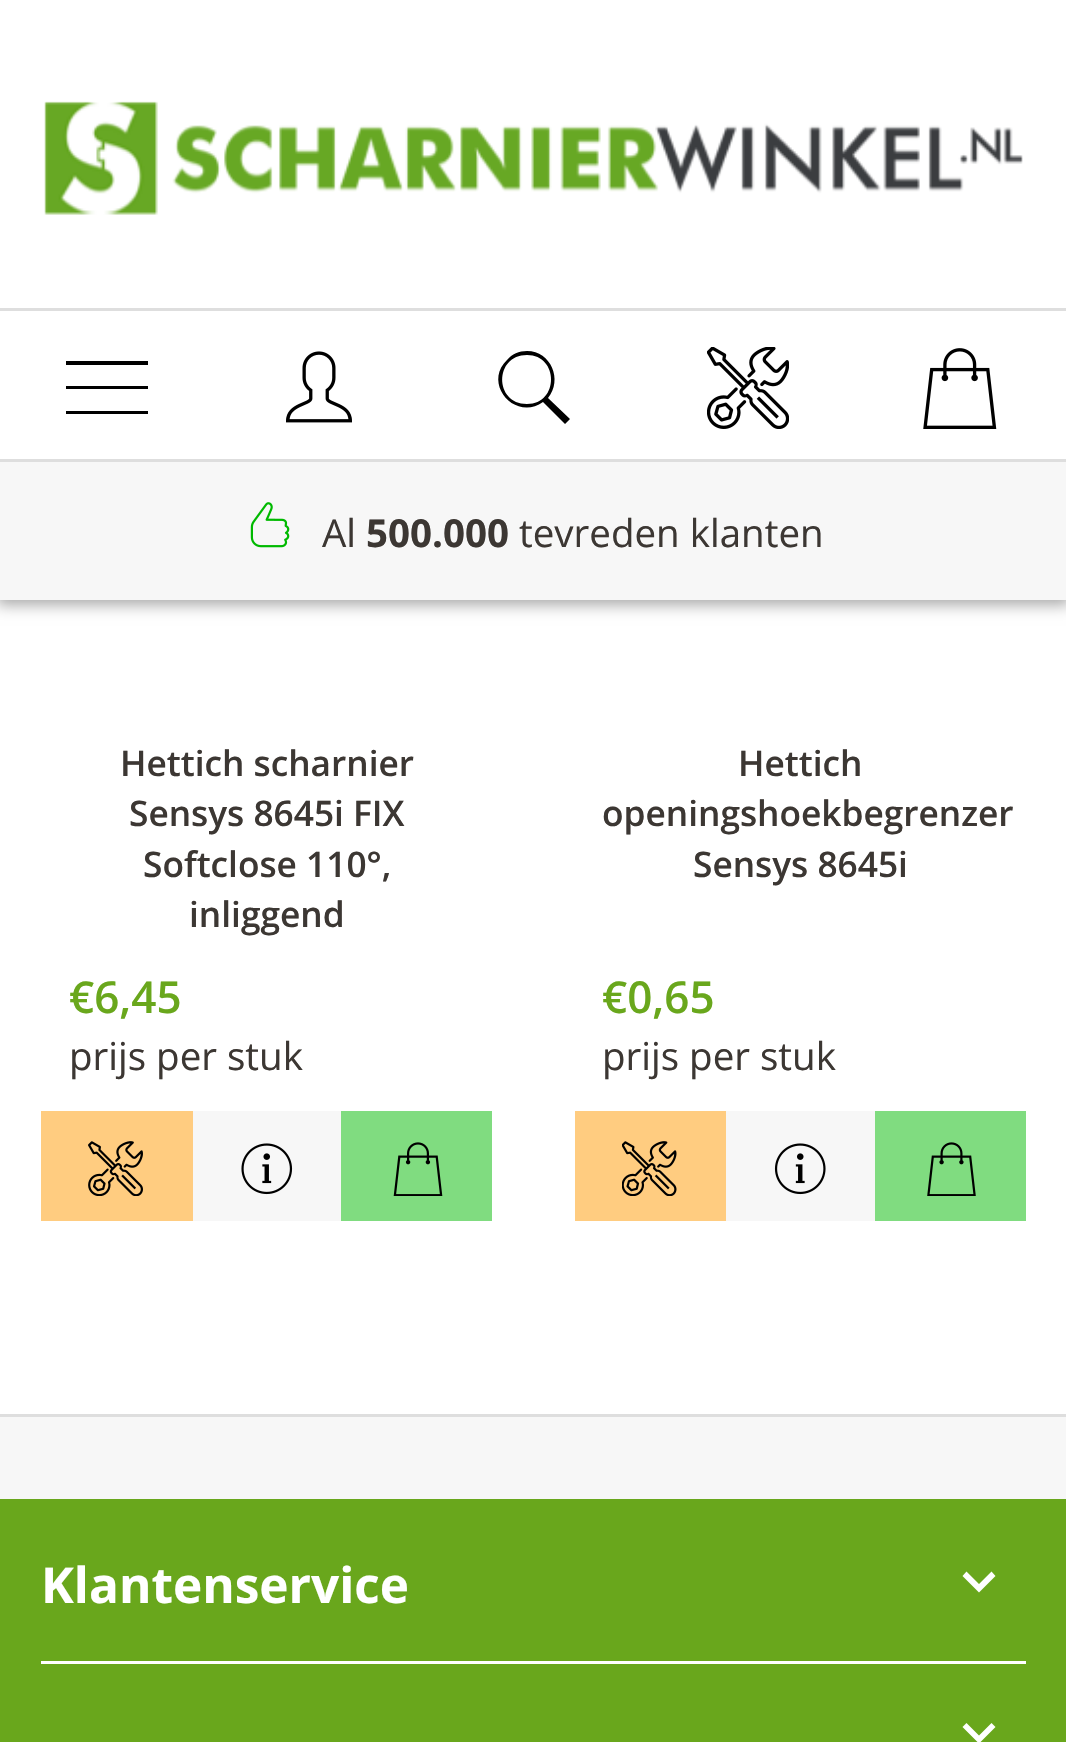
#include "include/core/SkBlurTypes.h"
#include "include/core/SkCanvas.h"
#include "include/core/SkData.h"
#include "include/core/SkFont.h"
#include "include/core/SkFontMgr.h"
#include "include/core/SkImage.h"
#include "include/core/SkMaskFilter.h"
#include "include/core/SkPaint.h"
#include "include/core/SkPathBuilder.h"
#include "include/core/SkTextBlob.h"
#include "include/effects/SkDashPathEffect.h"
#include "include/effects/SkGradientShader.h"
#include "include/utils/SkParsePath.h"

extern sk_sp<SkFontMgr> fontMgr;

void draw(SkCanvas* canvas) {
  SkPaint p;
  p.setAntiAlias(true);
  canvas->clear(SK_ColorWHITE);
  p.setColor(SkColorSetRGB(169, 169, 169));
  p.setMaskFilter(SkMaskFilter::MakeBlur(kNormal_SkBlurStyle, 7));
  canvas->drawRect(SkRect::MakeLTRB(-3, 0, 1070, 605), p);
  p.setMaskFilter(nullptr);
  p.setColor(SK_ColorWHITE);
  canvas->drawRect(SkRect::MakeLTRB(0, 0, 1066, 459), p);
  canvas->drawImageRect(SkImages::DeferredFromEncodedData(SkData::MakeFromFileName("images/1.png")), SkRect::MakeLTRB(44, 101, 1023, 215), SkSamplingOptions());
  p.setColor(SkColorSetRGB(222, 222, 222));
  canvas->drawRect(SkRect::MakeLTRB(0, 308, 1066, 311), p);
  canvas->drawRect(SkRect::MakeLTRB(0, 459, 1066, 462), p);
  p.setColor(SK_ColorBLACK);
  canvas->drawPath(SkPathBuilder().moveTo(66, 361).lineTo(66, 365).lineTo(148, 365).lineTo(148, 361).close().moveTo(66, 386).lineTo(66, 389).lineTo(148, 389).lineTo(148, 386).close().moveTo(66, 411).lineTo(66, 414).lineTo(148, 414).lineTo(148, 411).close().detach(), p);
  canvas->drawImageRect(SkImages::DeferredFromEncodedData(SkData::MakeFromFileName("images/2.png")), SkRect::MakeLTRB(286, 351, 352, 423), SkSamplingOptions());
  canvas->drawPath(SkPathBuilder().moveTo(527, 351).cubicTo(519, 351, 512, 354, 507, 360).cubicTo(482, 384, 516, 422, 543, 402).lineTo(565, 424).lineTo(570, 419).lineTo(548, 398).cubicTo(563, 380, 551, 351, 527, 351).close().moveTo(527, 355).cubicTo(559, 355, 559, 404, 527, 404).cubicTo(494, 404, 494, 355, 527, 355).close().detach(), p);
  canvas->drawImageRect(SkImages::DeferredFromEncodedData(SkData::MakeFromFileName("images/3.png")), SkRect::MakeLTRB(707, 347, 789, 429), SkSamplingOptions());
  canvas->drawImageRect(SkImages::DeferredFromEncodedData(SkData::MakeFromFileName("images/4.png")), SkRect::MakeLTRB(923, 348, 997, 429), SkSamplingOptions());
  p.setColor(SkColorSetRGB(247, 247, 247));
  canvas->drawRect(SkRect::MakeLTRB(0, 462, 1066, 600), p);
  canvas->drawImageRect(SkImages::DeferredFromEncodedData(SkData::MakeFromFileName("images/5.png")), SkRect::MakeLTRB(250, 502, 290, 548), SkSamplingOptions());
  p.setColor(SkColorSetRGB(255, 204, 128));
  canvas->drawRect(SkRect::MakeLTRB(41, 1111, 193, 1221), p);
  canvas->drawImageRect(SkImages::DeferredFromEncodedData(SkData::MakeFromFileName("images/6.png")), SkRect::MakeLTRB(88, 1141, 143, 1196), SkSamplingOptions());
  p.setColor(SkColorSetRGB(247, 247, 247));
  canvas->drawRect(SkRect::MakeLTRB(193, 1111, 341, 1221), p);
  canvas->drawImageRect(SkImages::DeferredFromEncodedData(SkData::MakeFromFileName("images/7.png")), SkRect::MakeLTRB(241, 1143, 293, 1195), SkSamplingOptions());
  p.setColor(SkColorSetRGB(128, 220, 128));
  canvas->drawRect(SkRect::MakeLTRB(341, 1111, 492, 1221), p);
  canvas->drawImageRect(SkImages::DeferredFromEncodedData(SkData::MakeFromFileName("images/8.png")), SkRect::MakeLTRB(393, 1142, 443, 1196), SkSamplingOptions());
  p.setColor(SkColorSetRGB(255, 204, 128));
  canvas->drawRect(SkRect::MakeLTRB(575, 1111, 726, 1221), p);
  canvas->drawImageRect(SkImages::DeferredFromEncodedData(SkData::MakeFromFileName("images/9.png")), SkRect::MakeLTRB(622, 1141, 677, 1196), SkSamplingOptions());
  p.setColor(SkColorSetRGB(247, 247, 247));
  canvas->drawRect(SkRect::MakeLTRB(726, 1111, 875, 1221), p);
  canvas->drawImageRect(SkImages::DeferredFromEncodedData(SkData::MakeFromFileName("images/10.png")), SkRect::MakeLTRB(774, 1143, 826, 1195), SkSamplingOptions());
  p.setColor(SkColorSetRGB(128, 220, 128));
  canvas->drawRect(SkRect::MakeLTRB(875, 1111, 1026, 1221), p);
  canvas->drawImageRect(SkImages::DeferredFromEncodedData(SkData::MakeFromFileName("images/11.png")), SkRect::MakeLTRB(927, 1142, 976, 1196), SkSamplingOptions());
  p.setColor(SkColorSetRGB(247, 247, 247));
  canvas->drawRect(SkRect::MakeLTRB(0, 1417, 1066, 1499), p);
  p.setColor(SkColorSetRGB(222, 222, 222));
  canvas->drawRect(SkRect::MakeLTRB(0, 1414, 1066, 1417), p);
  p.setColor(SkColorSetRGB(105, 167, 28));
  canvas->drawRect(SkRect::MakeLTRB(0, 1499, 1066, 1742), p);
  p.setColor(SK_ColorWHITE);
  canvas->drawPath(SkPathBuilder().moveTo(966.5f, 1571.5f).lineTo(962.5f, 1576).lineTo(979, 1592.5f).lineTo(995.5f, 1576).lineTo(991.5f, 1571.5f).lineTo(979, 1584).close().detach(), p);
  canvas->drawRect(SkRect::MakeLTRB(41, 1661, 1026, 1664), p);
  canvas->drawPath(SkPathBuilder().moveTo(966.5f, 1723).lineTo(962.5f, 1727).lineTo(979, 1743.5f).lineTo(995.5f, 1727).lineTo(991.5f, 1723).lineTo(979, 1735.5f).close().detach(), p);
  SkFont font1(fontMgr->matchFamilyStyle("Open Sans", SkFontStyle::Normal()), 38.5f);
  font1.setSubpixel(true);
  p.setColor(SkColorSetRGB(60, 55, 51));
  canvas->drawString("Al", 322, 547, font1, p);
  SkFont font2(fontMgr->matchFamilyStyle("Open Sans", SkFontStyle::Bold()), 38.5f);
  font2.setSubpixel(true);
  canvas->drawString("500.000", 366, 547, font2, p);
  canvas->drawString("tevreden klanten", 519, 547, font1, p);
  SkFont font3(fontMgr->matchFamilyStyle("Open Sans", SkFontStyle(600, SkFontStyle::kNormal_Width, SkFontStyle::kUpright_Slant)), 35.25f);
  font3.setSubpixel(true);
  canvas->drawString("Hettich scharnier", 120, 776, font3, p);
  canvas->drawString("Sensys 8645i FIX", 129, 826, font3, p);
  canvas->drawString("Softclose 110°,", 143, 877, font3, p);
  canvas->drawString("inliggend", 189, 927, font3, p);
  SkFont font4(fontMgr->matchFamilyStyle("Open Sans", SkFontStyle(600, SkFontStyle::kNormal_Width, SkFontStyle::kUpright_Slant)), 44);
  font4.setSubpixel(true);
  p.setColor(SkColorSetRGB(105, 167, 28));
  canvas->drawString("€6,45", 69, 1013, font4, p);
  p.setColor(SkColorSetRGB(60, 55, 51));
  canvas->drawString("prijs per stuk", 69, 1070, font1, p);
  canvas->drawString("Hettich", 738, 776, font3, p);
  canvas->drawString("openingshoekbegrenzer", 602, 826, font3, p);
  canvas->drawString("Sensys 8645i", 693, 877, font3, p);
  p.setColor(SkColorSetRGB(105, 167, 28));
  canvas->drawString("€0,65", 602, 1013, font4, p);
  p.setColor(SkColorSetRGB(60, 55, 51));
  canvas->drawString("prijs per stuk", 602, 1070, font1, p);
  SkFont font5(fontMgr->matchFamilyStyle("Open Sans", SkFontStyle::Bold()), 49.5f);
  font5.setSubpixel(true);
  p.setColor(SK_ColorWHITE);
  canvas->drawString("Klantenservice", 41, 1603, font5, p);
}
